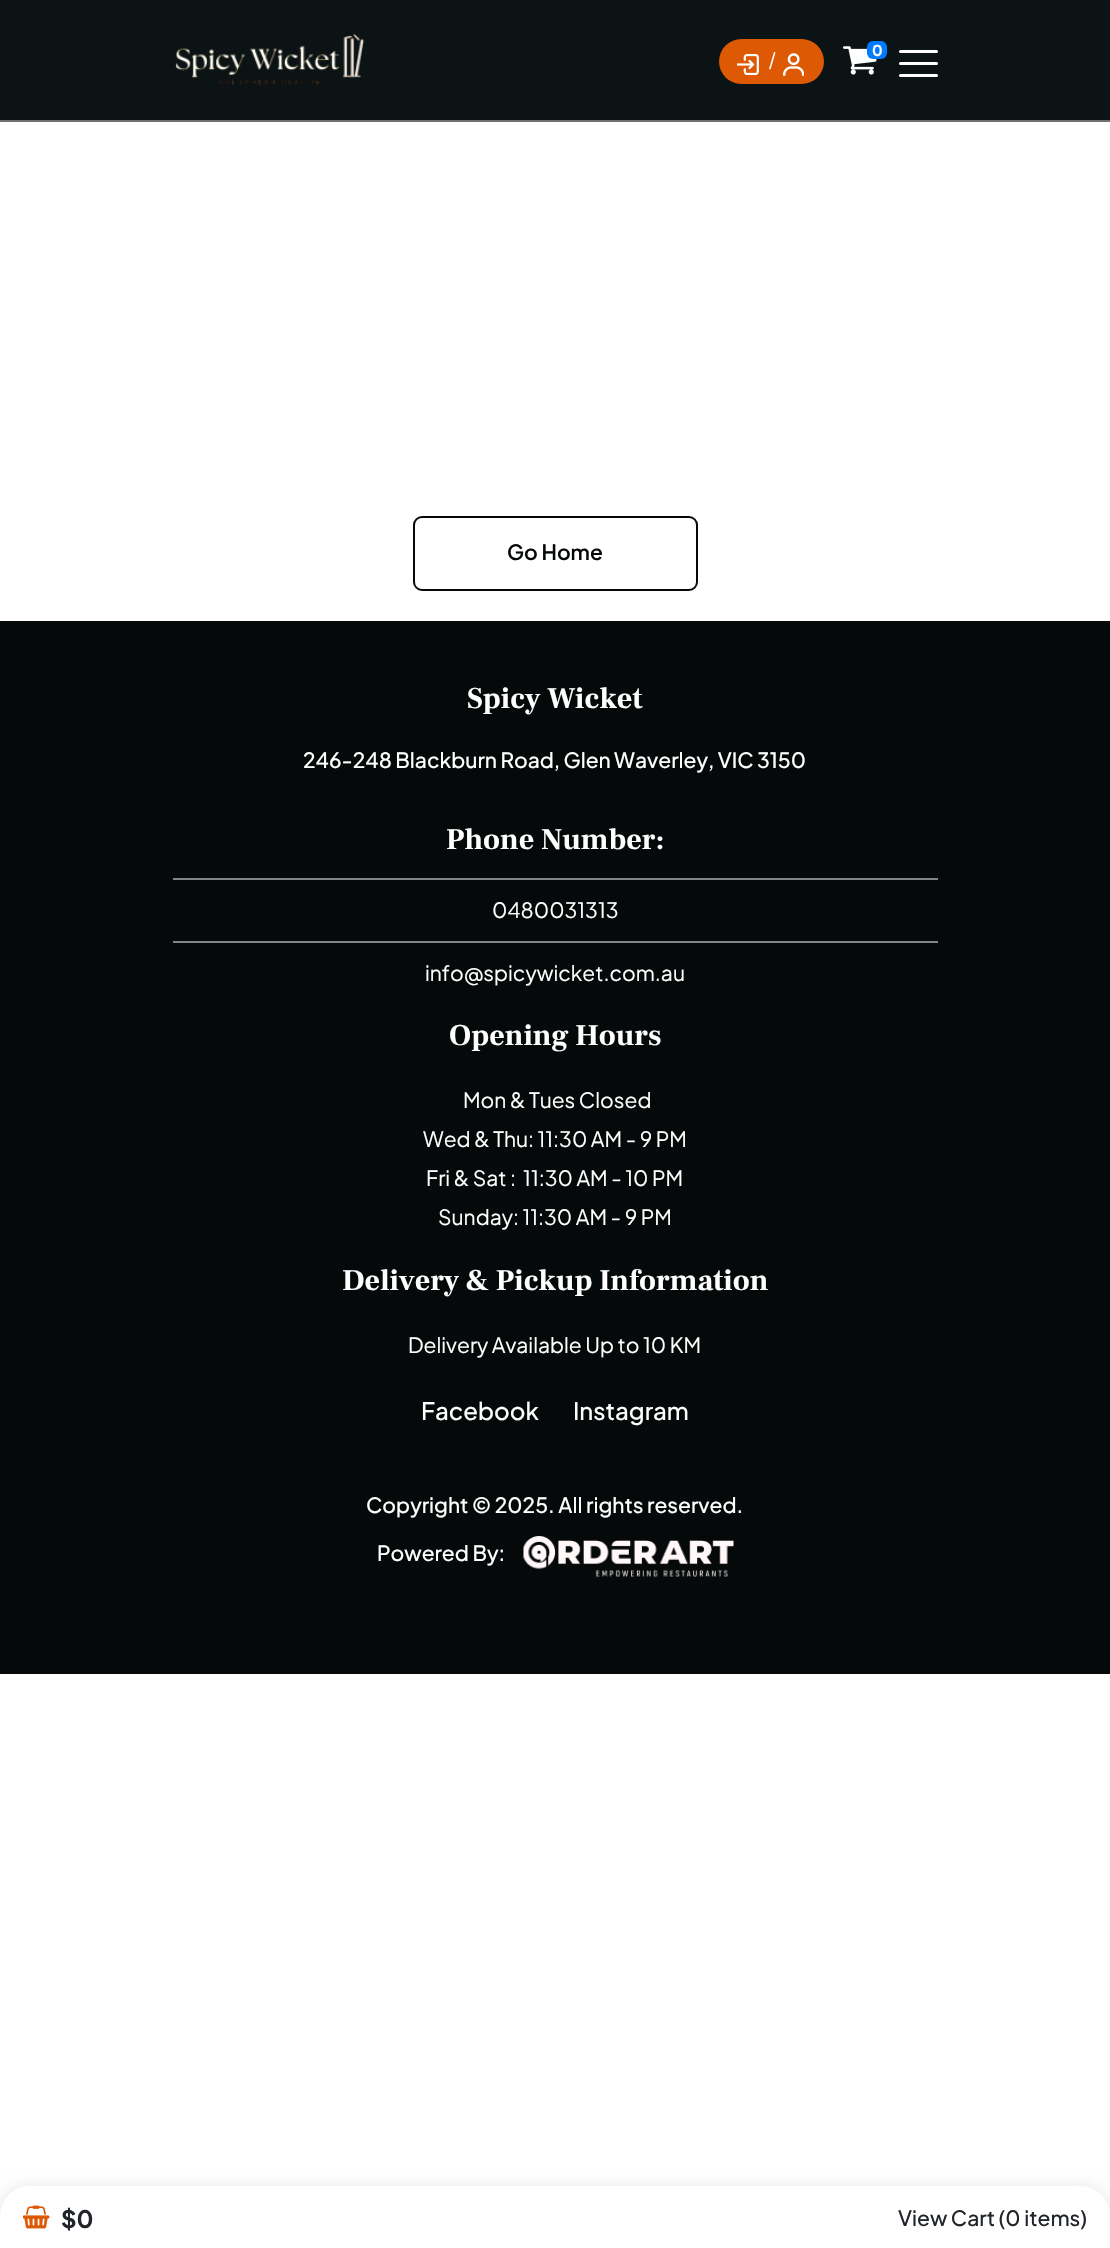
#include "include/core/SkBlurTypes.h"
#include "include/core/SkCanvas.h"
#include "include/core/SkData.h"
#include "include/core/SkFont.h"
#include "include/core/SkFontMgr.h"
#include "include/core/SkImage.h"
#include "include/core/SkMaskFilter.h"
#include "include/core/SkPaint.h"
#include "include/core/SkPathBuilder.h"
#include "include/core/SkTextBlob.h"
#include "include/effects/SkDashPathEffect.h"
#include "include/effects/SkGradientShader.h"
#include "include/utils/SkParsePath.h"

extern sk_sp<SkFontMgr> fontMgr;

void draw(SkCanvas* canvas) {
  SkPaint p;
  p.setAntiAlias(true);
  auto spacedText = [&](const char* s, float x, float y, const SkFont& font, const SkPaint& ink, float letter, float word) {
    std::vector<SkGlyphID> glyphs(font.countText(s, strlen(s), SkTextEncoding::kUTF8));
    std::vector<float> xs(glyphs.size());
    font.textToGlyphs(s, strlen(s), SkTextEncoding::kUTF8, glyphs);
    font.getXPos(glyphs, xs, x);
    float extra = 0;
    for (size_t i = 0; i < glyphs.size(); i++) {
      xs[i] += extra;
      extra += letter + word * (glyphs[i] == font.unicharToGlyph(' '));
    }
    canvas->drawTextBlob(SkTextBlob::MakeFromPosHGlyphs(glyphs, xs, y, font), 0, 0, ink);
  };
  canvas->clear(SK_ColorWHITE);
  p.setColor(SkColorSetRGB(11, 19, 21));
  canvas->drawRect(SkRect::MakeLTRB(0, 0, 1110, 120), p);
  p.setColor(SkColorSetRGB(109, 113, 115));
  canvas->drawRect(SkRect::MakeLTRB(0, 120, 1110, 122), p);
  canvas->drawImageRect(SkImages::DeferredFromEncodedData(SkData::MakeFromFileName("images/1.png")), SkRect::MakeLTRB(175, 33, 365, 86), SkSamplingOptions());
  p.setColor(SkColorSetRGB(221, 89, 3));
  canvas->drawRoundRect(SkRect::MakeLTRB(719, 39, 824, 84), 22.5f, 22.5f, p);
  canvas->drawImageRect(SkImages::DeferredFromEncodedData(SkData::MakeFromFileName("images/2.png")), SkRect::MakeLTRB(737, 54, 759, 75), SkSamplingOptions());
  p.setColor(SK_ColorWHITE);
  canvas->drawPath(SkPathBuilder().moveTo(774, 52).lineTo(775.5f, 52.5f).lineTo(770.5f, 69.5f).lineTo(769, 69).close().detach(), p);
  canvas->drawImageRect(SkImages::DeferredFromEncodedData(SkData::MakeFromFileName("images/3.png")), SkRect::MakeLTRB(783, 53, 804, 76), SkSamplingOptions());
  canvas->drawImageRect(SkImages::DeferredFromEncodedData(SkData::MakeFromFileName("images/4.png")), SkRect::MakeLTRB(843, 46, 877, 75), SkSamplingOptions());
  p.setColor(SkColorSetRGB(0, 123, 255));
  canvas->drawRoundRect(SkRect::MakeLTRB(867, 41, 887, 59), 6, 6, p);
  p.setColor(SK_ColorWHITE);
  canvas->drawRoundRect(SkRect::MakeLTRB(899, 50, 938, 53), 1.5f, 1.5f, p);
  canvas->drawRoundRect(SkRect::MakeLTRB(899, 62, 938, 65), 1.5f, 1.5f, p);
  canvas->drawRoundRect(SkRect::MakeLTRB(899, 74, 938, 77), 1.5f, 1.5f, p);
  p.setStyle(SkPaint::kStroke_Style);
  p.setStrokeWidth(2);
  p.setColor(SkColorSetRGB(6, 9, 10));
  canvas->drawRoundRect(SkRect::MakeLTRB(414, 517, 697, 590), 8, 8, p);
  p.setStyle(SkPaint::kFill_Style);
  canvas->drawRect(SkRect::MakeLTRB(0, 621, 1110, 1674), p);
  p.setColor(SkColorSetRGB(131, 132, 133));
  canvas->drawRect(SkRect::MakeLTRB(173, 878, 938, 880), p);
  canvas->drawRect(SkRect::MakeLTRB(173, 941, 938, 943), p);
  canvas->drawImageRect(SkImages::DeferredFromEncodedData(SkData::MakeFromFileName("images/5.png")), SkRect::MakeLTRB(523, 1536, 734, 1577), SkSamplingOptions());
  p.setColor(SkColorSetARGB(26, 0, 0, 0));
  p.setMaskFilter(SkMaskFilter::MakeBlur(kNormal_SkBlurStyle, 7.5f));
  canvas->drawRoundRect(SkRect::MakeLTRB(0, 2186, 1110, 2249), 30, 30, p);
  p.setMaskFilter(nullptr);
  p.setColor(SK_ColorWHITE);
  canvas->drawPath(SkPathBuilder().moveTo(30, 2186).lineTo(1080, 2186).cubicTo(1096.5f, 2186, 1110, 2199.5f, 1110, 2216).lineTo(1110, 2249).lineTo(0, 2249).lineTo(0, 2216).cubicTo(0, 2199.5f, 13.5f, 2186, 30, 2186).close().detach(), p);
  canvas->drawImageRect(SkImages::DeferredFromEncodedData(SkData::MakeFromFileName("images/6.png")), SkRect::MakeLTRB(23, 2205, 50, 2229), SkSamplingOptions());
  SkFont font1(fontMgr->matchFamilyStyle("Plus Jakarta Sans", SkFontStyle::Bold()), 15);
  font1.setSubpixel(true);
  canvas->drawString("0", 872, 56, font1, p);
  SkFont font2(fontMgr->matchFamilyStyle("Plus Jakarta Sans", SkFontStyle(600, SkFontStyle::kNormal_Width, SkFontStyle::kUpright_Slant)), 21);
  font2.setSubpixel(true);
  p.setColor(SkColorSetRGB(6, 9, 10));
  canvas->drawString("Go Home", 507, 560, font2, p);
  SkFont font3(fontMgr->matchFamilyStyle("Frank Ruhl Libre", SkFontStyle::Bold()), 30);
  font3.setSubpixel(true);
  p.setColor(SK_ColorWHITE);
  canvas->drawString("Spicy Wicket", 467, 708, font3, p);
  SkFont font4(fontMgr->matchFamilyStyle("Plus Jakarta Sans", SkFontStyle(500, SkFontStyle::kNormal_Width, SkFontStyle::kUpright_Slant)), 21);
  font4.setSubpixel(true);
  spacedText("246-248 Blackburn Road, Glen Waverley, VIC 3150", 303, 768, font4, p, 0, -0.25f);
  canvas->drawString("Phone Number:", 446, 849, font3, p);
  SkFont font5(fontMgr->matchFamilyStyle("Plus Jakarta Sans", SkFontStyle::Normal()), 21);
  font5.setSubpixel(true);
  canvas->drawString("0480031313", 492, 918, font5, p);
  canvas->drawString("info@spicywicket.com.au", 425, 981, font5, p);
  canvas->drawString("Opening Hours", 449, 1045, font3, p);
  canvas->drawString("Mon & Tues Closed", 463, 1108, font5, p);
  canvas->drawString("Wed & Thu: 11:30 AM - 9 PM", 423, 1147, font5, p);
  canvas->drawString("Fri & Sat :  11:30 AM - 10 PM", 426, 1186, font5, p);
  canvas->drawString("Sunday: 11:30 AM - 9 PM", 438, 1225, font5, p);
  canvas->drawString("Delivery & Pickup Information", 342, 1290, font3, p);
  canvas->drawString("Delivery Available Up to 10 KM", 408, 1353, font5, p);
  SkFont font6(fontMgr->matchFamilyStyle("Plus Jakarta Sans", SkFontStyle(500, SkFontStyle::kNormal_Width, SkFontStyle::kUpright_Slant)), 24);
  font6.setSubpixel(true);
  canvas->drawString("Facebook", 421, 1420, font6, p);
  canvas->drawString("Instagram", 573, 1420, font6, p);
  canvas->drawString("Copyright © 2025. All rights reserved.", 366, 1513, font4, p);
  canvas->drawString("Powered By:", 377, 1561, font4, p);
  SkFont font7(fontMgr->matchFamilyStyle("Plus Jakarta Sans", SkFontStyle::Bold()), 24);
  font7.setSubpixel(true);
  p.setColor(SkColorSetRGB(33, 37, 41));
  canvas->drawString("$0", 61, 2228, font7, p);
  canvas->drawString("View Cart (0 items)", 898, 2226, font4, p);
}
